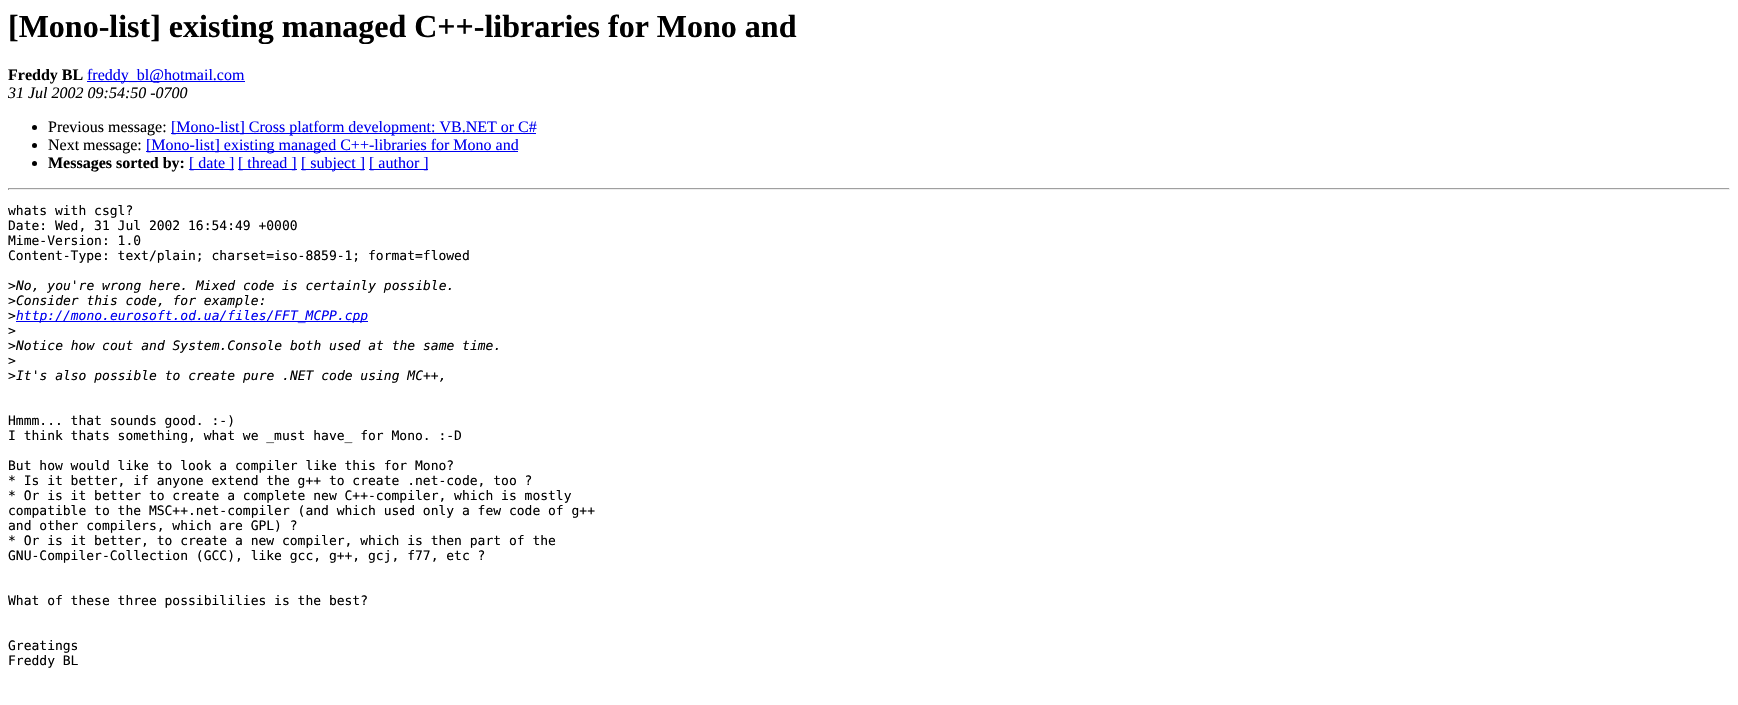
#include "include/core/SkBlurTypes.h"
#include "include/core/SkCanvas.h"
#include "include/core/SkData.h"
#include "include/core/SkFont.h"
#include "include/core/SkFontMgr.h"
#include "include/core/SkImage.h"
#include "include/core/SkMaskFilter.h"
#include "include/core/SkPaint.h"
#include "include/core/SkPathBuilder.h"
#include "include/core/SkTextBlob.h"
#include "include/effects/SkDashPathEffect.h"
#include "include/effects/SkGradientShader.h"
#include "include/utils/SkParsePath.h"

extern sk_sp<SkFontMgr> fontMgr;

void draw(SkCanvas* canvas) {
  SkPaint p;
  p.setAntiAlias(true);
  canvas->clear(SK_ColorWHITE);
  p.setColor(SkColorSetRGB(0, 0, 238));
  canvas->drawRect(SkRect::MakeLTRB(87, 81, 245, 82), p);
  p.setColor(SK_ColorBLACK);
  canvas->drawCircle(34.5f, 127.5f, 2.5f, p);
  p.setColor(SkColorSetRGB(0, 0, 238));
  canvas->drawRect(SkRect::MakeLTRB(171, 133, 536, 134), p);
  p.setColor(SK_ColorBLACK);
  canvas->drawCircle(34.5f, 145.5f, 2.5f, p);
  p.setColor(SkColorSetRGB(0, 0, 238));
  canvas->drawRect(SkRect::MakeLTRB(146, 151, 518, 152), p);
  p.setColor(SK_ColorBLACK);
  canvas->drawCircle(34.5f, 163.5f, 2.5f, p);
  p.setColor(SkColorSetRGB(0, 0, 238));
  canvas->drawRect(SkRect::MakeLTRB(189, 169, 234, 170), p);
  canvas->drawRect(SkRect::MakeLTRB(238, 169, 297, 170), p);
  canvas->drawRect(SkRect::MakeLTRB(301, 169, 365, 170), p);
  canvas->drawRect(SkRect::MakeLTRB(369, 169, 428, 170), p);
  p.setColor(SkColorSetRGB(159, 159, 159));
  canvas->drawRect(SkRect::MakeLTRB(8, 188, 1730, 189), p);
  p.setColor(SkColorSetRGB(238, 238, 238));
  canvas->drawRect(SkRect::MakeLTRB(1729, 188, 1730, 190), p);
  canvas->drawRect(SkRect::MakeLTRB(8, 189, 1730, 190), p);
  p.setColor(SkColorSetRGB(159, 159, 159));
  canvas->drawRect(SkRect::MakeLTRB(8, 188, 9, 190), p);
  p.setColor(SkColorSetRGB(0, 0, 238));
  canvas->drawRect(SkRect::MakeLTRB(16, 321, 368, 322), p);
  SkFont font1(fontMgr->matchFamilyStyle("Liberation Serif", SkFontStyle::Bold()), 32);
  font1.setSubpixel(true);
  p.setColor(SK_ColorBLACK);
  canvas->drawString("[Mono-list] existing managed C++-libraries for Mono and", 8, 37, font1, p);
  SkFont font2(fontMgr->matchFamilyStyle("Liberation Serif", SkFontStyle::Bold()), 16);
  font2.setSubpixel(true);
  canvas->drawString("Freddy BL", 8, 80, font2, p);
  SkFont font3(fontMgr->matchFamilyStyle("Liberation Serif", SkFontStyle::Normal()), 16);
  font3.setSubpixel(true);
  p.setColor(SkColorSetRGB(0, 0, 238));
  canvas->drawString("freddy_bl@hotmail.com", 87, 80, font3, p);
  SkFont font4(fontMgr->matchFamilyStyle("Liberation Serif", SkFontStyle::Italic()), 16);
  font4.setSubpixel(true);
  p.setColor(SK_ColorBLACK);
  canvas->drawString("31 Jul 2002 09:54:50 -0700", 8, 98, font4, p);
  canvas->drawString("Previous message:", 48, 132, font3, p);
  p.setColor(SkColorSetRGB(0, 0, 238));
  canvas->drawString("[Mono-list] Cross platform development: VB.NET or C#", 171, 132, font3, p);
  p.setColor(SK_ColorBLACK);
  canvas->drawString("Next message:", 48, 150, font3, p);
  p.setColor(SkColorSetRGB(0, 0, 238));
  canvas->drawString("[Mono-list] existing managed C++-libraries for Mono and", 146, 150, font3, p);
  p.setColor(SK_ColorBLACK);
  canvas->drawString("Messages sorted by:", 48, 168, font2, p);
  p.setColor(SkColorSetRGB(0, 0, 238));
  canvas->drawString("[ date ]", 189, 168, font3, p);
  canvas->drawString("[ thread ]", 238, 168, font3, p);
  canvas->drawString("[ subject ]", 301, 168, font3, p);
  canvas->drawString("[ author ]", 369, 168, font3, p);
  SkFont font5(fontMgr->matchFamilyStyle("DejaVu Sans Mono", SkFontStyle::Normal()), 13);
  font5.setSubpixel(true);
  p.setColor(SK_ColorBLACK);
  canvas->drawString("whats with csgl?", 8, 215, font5, p);
  canvas->drawString("Date: Wed, 31 Jul 2002 16:54:49 +0000", 8, 230, font5, p);
  canvas->drawString("Mime-Version: 1.0", 8, 245, font5, p);
  canvas->drawString("Content-Type: text/plain; charset=iso-8859-1; format=flowed", 8, 260, font5, p);
  canvas->drawString(">", 8, 290, font5, p);
  SkFont font6(fontMgr->matchFamilyStyle("DejaVu Sans Mono", SkFontStyle::Italic()), 13);
  font6.setSubpixel(true);
  canvas->drawString("No, you're wrong here. Mixed code is certainly possible.", 16, 290, font6, p);
  canvas->drawString(">", 8, 305, font5, p);
  canvas->drawString("Consider this code, for example:", 16, 305, font6, p);
  canvas->drawString(">", 8, 320, font5, p);
  p.setColor(SkColorSetRGB(0, 0, 238));
  canvas->drawString("http://mono.eurosoft.od.ua/files/FFT_MCPP.cpp", 16, 320, font6, p);
  p.setColor(SK_ColorBLACK);
  canvas->drawString(">", 8, 335, font5, p);
  canvas->drawString(">", 8, 350, font5, p);
  canvas->drawString("Notice how cout and System.Console both used at the same time.", 16, 350, font6, p);
  canvas->drawString(">", 8, 365, font5, p);
  canvas->drawString(">", 8, 380, font5, p);
  canvas->drawString("It's also possible to create pure .NET code using MC++,", 16, 380, font6, p);
  canvas->drawString("Hmmm... that sounds good. :-)", 8, 425, font5, p);
  canvas->drawString("I think thats something, what we _must have_ for Mono. :-D", 8, 440, font5, p);
  canvas->drawString("But how would like to look a compiler like this for Mono?", 8, 470, font5, p);
  canvas->drawString("* Is it better, if anyone extend the g++ to create .net-code, too ?", 8, 485, font5, p);
  canvas->drawString("* Or is it better to create a complete new C++-compiler, which is mostly", 8, 500, font5, p);
  canvas->drawString("compatible to the MSC++.net-compiler (and which used only a few code of g++", 8, 515, font5, p);
  canvas->drawString("and other compilers, which are GPL) ?", 8, 530, font5, p);
  canvas->drawString("* Or is it better, to create a new compiler, which is then part of the", 8, 545, font5, p);
  canvas->drawString("GNU-Compiler-Collection (GCC), like gcc, g++, gcj, f77, etc ?", 8, 560, font5, p);
  canvas->drawString("What of these three possibililies is the best?", 8, 605, font5, p);
  canvas->drawString("Greatings", 8, 650, font5, p);
  canvas->drawString("Freddy BL", 8, 665, font5, p);
}
